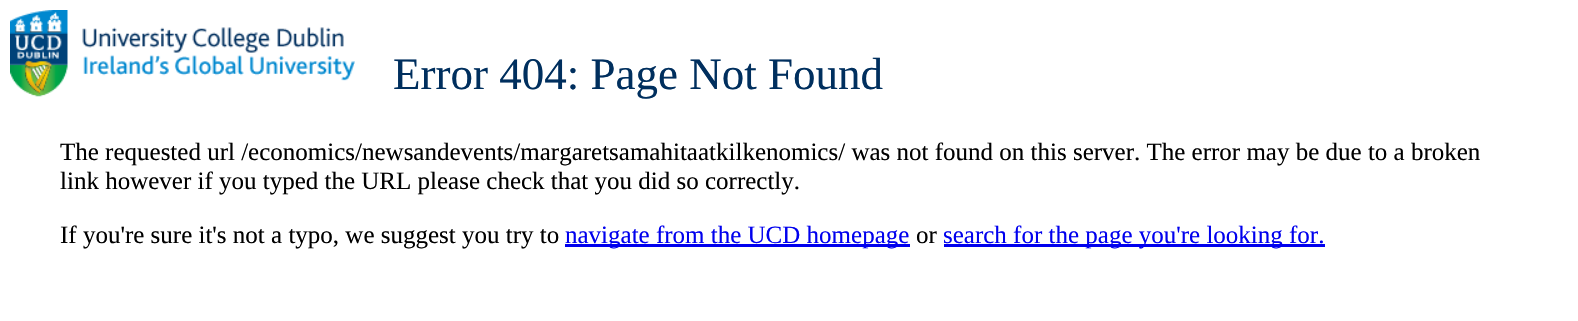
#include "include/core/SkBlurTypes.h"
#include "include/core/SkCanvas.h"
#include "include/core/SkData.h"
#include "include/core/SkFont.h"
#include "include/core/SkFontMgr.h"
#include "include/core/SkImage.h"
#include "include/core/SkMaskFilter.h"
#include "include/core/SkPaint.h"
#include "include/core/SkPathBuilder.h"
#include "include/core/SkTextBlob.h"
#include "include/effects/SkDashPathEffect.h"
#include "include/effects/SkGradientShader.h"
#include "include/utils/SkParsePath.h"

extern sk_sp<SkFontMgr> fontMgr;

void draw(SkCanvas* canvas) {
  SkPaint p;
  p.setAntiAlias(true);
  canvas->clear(SK_ColorWHITE);
  canvas->drawImageRect(SkImages::DeferredFromEncodedData(SkData::MakeFromFileName("images/1.png")), SkRect::MakeLTRB(10, 10, 355, 97), SkSamplingOptions());
  p.setColor(SkColorSetRGB(0, 0, 238));
  canvas->drawRect(SkRect::MakeLTRB(565, 244, 910, 247), p);
  canvas->drawRect(SkRect::MakeLTRB(944, 244, 1325, 247), p);
  SkFont font1(fontMgr->matchFamilyStyle("Liberation Serif", SkFontStyle::Normal()), 45);
  font1.setSubpixel(true);
  p.setColor(SkColorSetRGB(0, 47, 94));
  canvas->drawString("Error 404: Page Not Found", 393, 89, font1, p);
  SkFont font2(fontMgr->matchFamilyStyle("Liberation Serif", SkFontStyle::Normal()), 25);
  font2.setSubpixel(true);
  p.setColor(SK_ColorBLACK);
  canvas->drawString("The requested url /economics/newsandevents/margaretsamahitaatkilkenomics/ was not found on this server. The error may be due to a broken", 60, 160, font2, p);
  canvas->drawString("link however if you typed the URL please check that you did so correctly.", 60, 189, font2, p);
  canvas->drawString("If you're sure it's not a typo, we suggest you try to", 60, 243, font2, p);
  p.setColor(SkColorSetRGB(0, 0, 238));
  canvas->drawString("navigate from the UCD homepage", 565, 243, font2, p);
  p.setColor(SK_ColorBLACK);
  canvas->drawString("or", 916, 243, font2, p);
  p.setColor(SkColorSetRGB(0, 0, 238));
  canvas->drawString("search for the page you're looking for.", 943, 243, font2, p);
}
